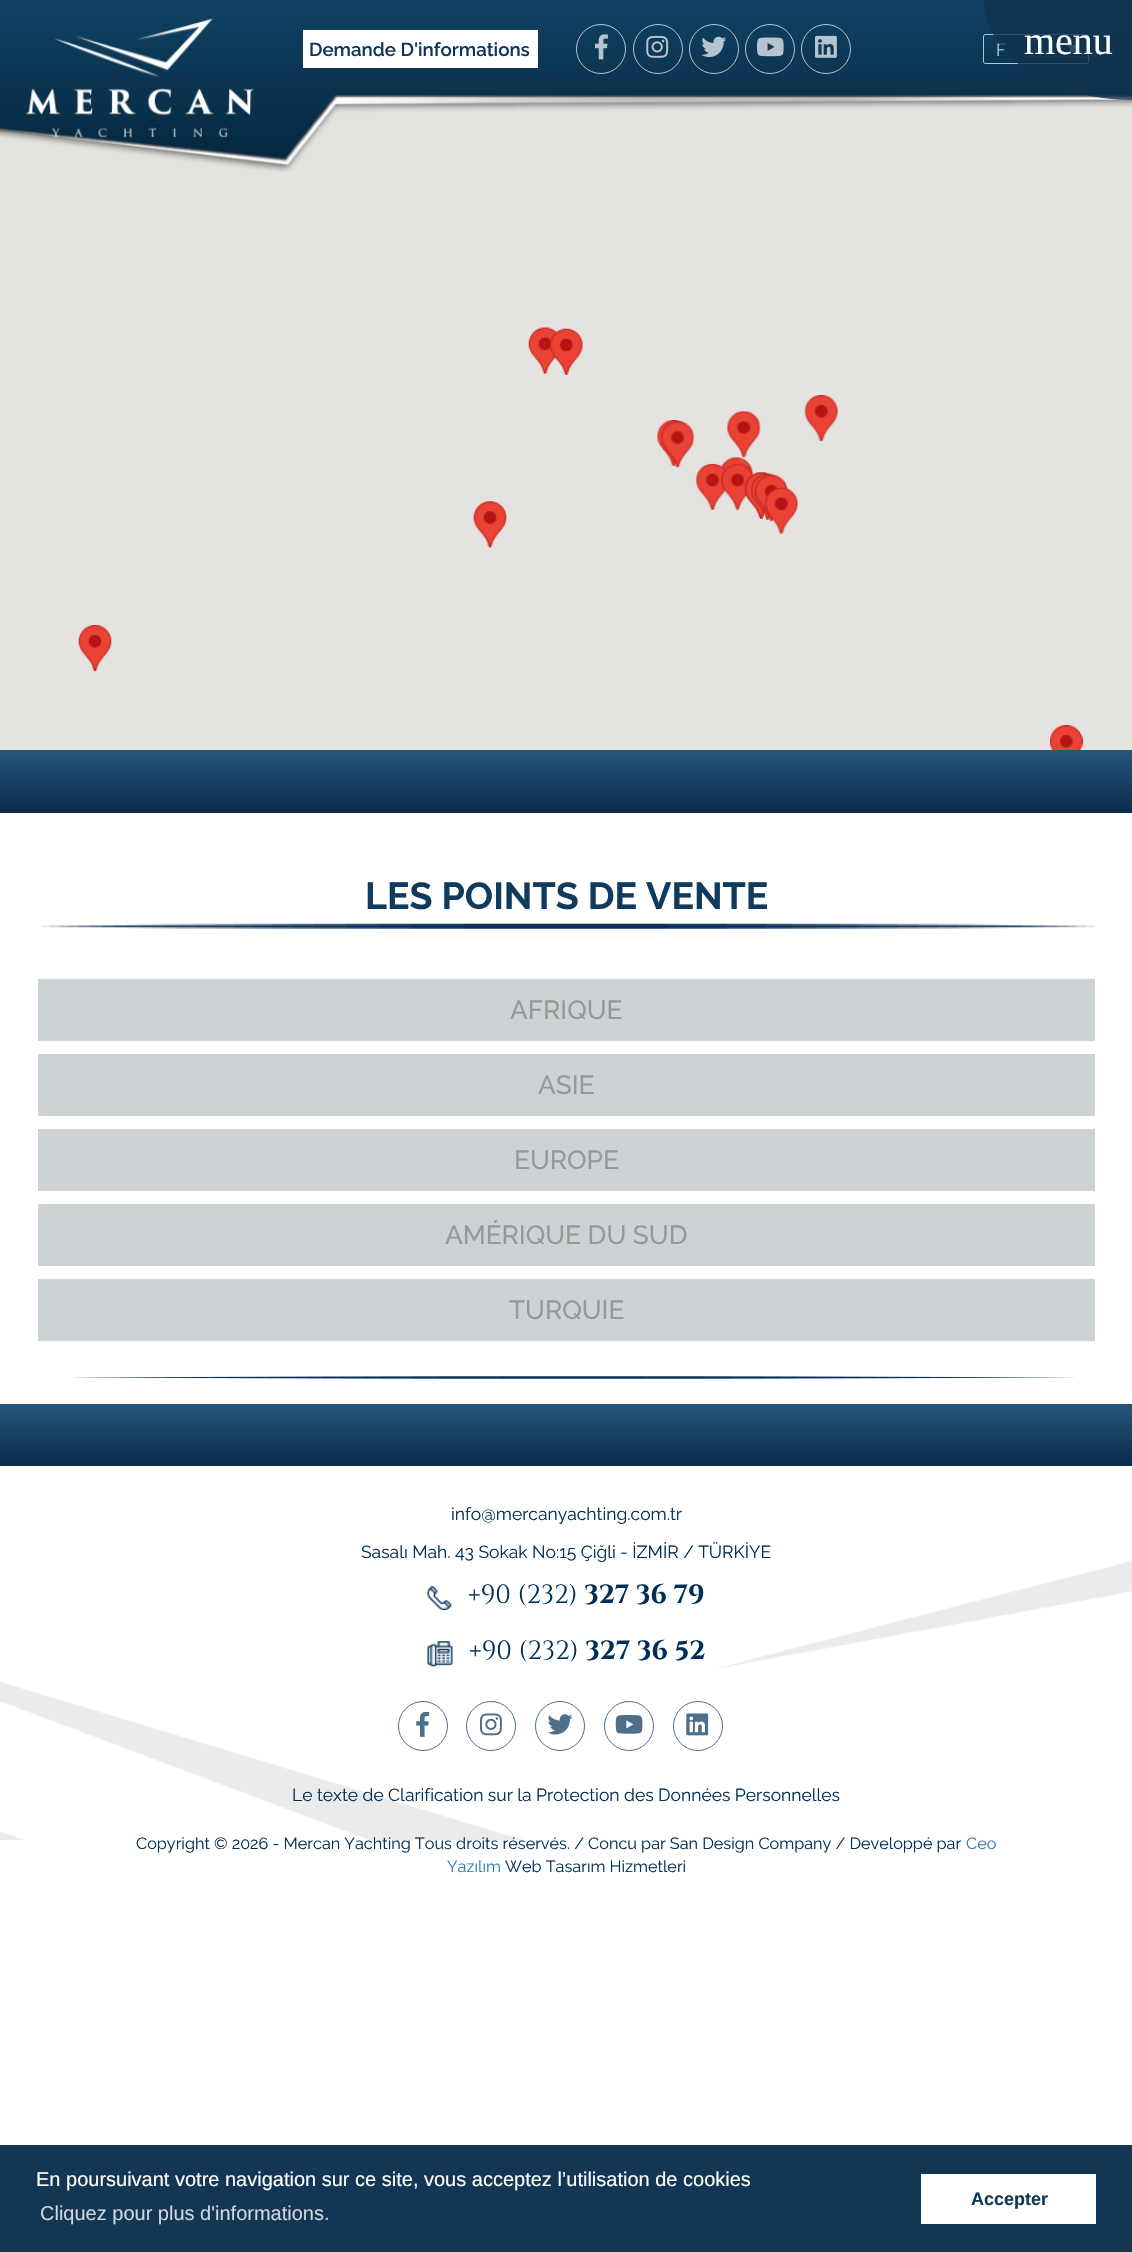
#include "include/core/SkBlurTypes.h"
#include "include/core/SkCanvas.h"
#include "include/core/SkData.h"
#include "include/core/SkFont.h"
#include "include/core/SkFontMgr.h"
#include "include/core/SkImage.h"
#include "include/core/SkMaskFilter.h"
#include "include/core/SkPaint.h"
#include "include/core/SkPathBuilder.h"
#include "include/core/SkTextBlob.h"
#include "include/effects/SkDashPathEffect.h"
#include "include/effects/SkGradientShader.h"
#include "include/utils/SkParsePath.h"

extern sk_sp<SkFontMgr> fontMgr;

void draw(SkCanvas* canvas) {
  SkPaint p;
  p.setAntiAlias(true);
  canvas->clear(SK_ColorWHITE);
  p.setColor(SkColorSetRGB(229, 227, 223));
  canvas->drawRect(SkRect::MakeLTRB(0, 98, 1132, 750), p);
  canvas->drawImageRect(SkImages::DeferredFromEncodedData(SkData::MakeFromFileName("images/1.png")), SkRect::MakeLTRB(0, 0, 1132, 172), SkSamplingOptions());
  canvas->drawImageRect(SkImages::DeferredFromEncodedData(SkData::MakeFromFileName("images/2.png")), SkRect::MakeLTRB(26, 18, 254, 138), SkSamplingOptions());
  p.setColor(SK_ColorWHITE);
  canvas->drawRect(SkRect::MakeLTRB(303, 30, 538, 68), p);
  p.setStyle(SkPaint::kStroke_Style);
  p.setStrokeWidth(1);
  p.setColor(SkColorSetARGB(179, 255, 255, 255));
  canvas->drawCircle(601, 49, 24.5f, p);
  canvas->drawImageRect(SkImages::DeferredFromEncodedData(SkData::MakeFromFileName("images/3.png")), SkRect::MakeLTRB(595, 34, 608, 60), SkSamplingOptions());
  canvas->drawCircle(658, 49, 24.5f, p);
  canvas->drawImageRect(SkImages::DeferredFromEncodedData(SkData::MakeFromFileName("images/4.png")), SkRect::MakeLTRB(646, 35, 669, 58), SkSamplingOptions());
  canvas->drawCircle(714, 49, 24.5f, p);
  canvas->drawImageRect(SkImages::DeferredFromEncodedData(SkData::MakeFromFileName("images/5.png")), SkRect::MakeLTRB(701, 36, 726, 57), SkSamplingOptions());
  canvas->drawCircle(770, 49, 24.5f, p);
  canvas->drawImageRect(SkImages::DeferredFromEncodedData(SkData::MakeFromFileName("images/6.png")), SkRect::MakeLTRB(757, 37, 784, 57), SkSamplingOptions());
  canvas->drawCircle(826, 49, 24.5f, p);
  canvas->drawImageRect(SkImages::DeferredFromEncodedData(SkData::MakeFromFileName("images/7.png")), SkRect::MakeLTRB(815, 35, 837, 58), SkSamplingOptions());
  canvas->drawImageRect(SkImages::DeferredFromEncodedData(SkData::MakeFromFileName("images/8.png")), SkRect::MakeLTRB(1067, 45, 1078, 54), SkSamplingOptions());
  canvas->drawRoundRect(SkRect::MakeLTRB(983.5f, 34.5f, 1088.5f, 63.5f), 2, 2, p);
  canvas->drawImageRect(SkImages::DeferredFromEncodedData(SkData::MakeFromFileName("images/9.png")), SkRect::MakeLTRB(528, 327, 558, 374), SkSamplingOptions());
  canvas->drawImageRect(SkImages::DeferredFromEncodedData(SkData::MakeFromFileName("images/10.png")), SkRect::MakeLTRB(550, 328, 583, 375), SkSamplingOptions());
  canvas->drawImageRect(SkImages::DeferredFromEncodedData(SkData::MakeFromFileName("images/11.png")), SkRect::MakeLTRB(657, 420, 691, 467), SkSamplingOptions());
  canvas->drawImageRect(SkImages::DeferredFromEncodedData(SkData::MakeFromFileName("images/12.png")), SkRect::MakeLTRB(727, 411, 761, 458), SkSamplingOptions());
  canvas->drawImageRect(SkImages::DeferredFromEncodedData(SkData::MakeFromFileName("images/13.png")), SkRect::MakeLTRB(804, 395, 838, 442), SkSamplingOptions());
  canvas->drawImageRect(SkImages::DeferredFromEncodedData(SkData::MakeFromFileName("images/14.png")), SkRect::MakeLTRB(661, 421, 695, 468), SkSamplingOptions());
  canvas->drawImageRect(SkImages::DeferredFromEncodedData(SkData::MakeFromFileName("images/16.png")), SkRect::MakeLTRB(720, 457, 753, 505), SkSamplingOptions());
  canvas->drawImageRect(SkImages::DeferredFromEncodedData(SkData::MakeFromFileName("images/15.png")), SkRect::MakeLTRB(695, 463, 727, 510), SkSamplingOptions());
  canvas->drawImageRect(SkImages::DeferredFromEncodedData(SkData::MakeFromFileName("images/17.png")), SkRect::MakeLTRB(721, 463, 755, 511), SkSamplingOptions());
  canvas->drawImageRect(SkImages::DeferredFromEncodedData(SkData::MakeFromFileName("images/18.png")), SkRect::MakeLTRB(745, 472, 774, 519), SkSamplingOptions());
  canvas->drawImageRect(SkImages::DeferredFromEncodedData(SkData::MakeFromFileName("images/19.png")), SkRect::MakeLTRB(745, 472, 774, 519), SkSamplingOptions());
  canvas->drawImageRect(SkImages::DeferredFromEncodedData(SkData::MakeFromFileName("images/20.png")), SkRect::MakeLTRB(751, 473, 784, 520), SkSamplingOptions());
  canvas->drawImageRect(SkImages::DeferredFromEncodedData(SkData::MakeFromFileName("images/21.png")), SkRect::MakeLTRB(755, 474, 788, 522), SkSamplingOptions());
  canvas->drawImageRect(SkImages::DeferredFromEncodedData(SkData::MakeFromFileName("images/22.png")), SkRect::MakeLTRB(473, 501, 507, 548), SkSamplingOptions());
  canvas->drawImageRect(SkImages::DeferredFromEncodedData(SkData::MakeFromFileName("images/23.png")), SkRect::MakeLTRB(764, 487, 798, 534), SkSamplingOptions());
  canvas->drawImageRect(SkImages::DeferredFromEncodedData(SkData::MakeFromFileName("images/24.png")), SkRect::MakeLTRB(78, 625, 112, 672), SkSamplingOptions());
  canvas->drawImageRect(SkImages::DeferredFromEncodedData(SkData::MakeFromFileName("images/25.png")), SkRect::MakeLTRB(1050, 725, 1083, 750), SkSamplingOptions());
  p.setStyle(SkPaint::kFill_Style);
  {
    const SkColor colors[] = {SkColorSetRGB(38, 86, 122), SkColorSetRGB(10, 43, 74)};
    const float stops[] = {0, 1};
    const SkPoint ends[] = {{566, 750}, {566, 813}};
    p.setShader(SkGradientShader::MakeLinear(ends, colors, stops, 2, SkTileMode::kClamp));
    p.setAlpha(255);
  }
  canvas->drawRect(SkRect::MakeLTRB(0, 750, 1132, 813), p);
  canvas->drawImageRect(SkImages::DeferredFromEncodedData(SkData::MakeFromFileName("images/26.png")), SkRect::MakeLTRB(41, 923, 1095, 929), SkSamplingOptions());
  canvas->drawImageRect(SkImages::DeferredFromEncodedData(SkData::MakeFromFileName("images/27.png")), SkRect::MakeLTRB(71, 1376, 1075, 1379), SkSamplingOptions());
  p.setShader(nullptr);
  p.setColor(SkColorSetRGB(205, 211, 213));
  canvas->drawRect(SkRect::MakeLTRB(38, 979, 1095, 1041), p);
  canvas->drawRect(SkRect::MakeLTRB(38, 1054, 1095, 1116), p);
  canvas->drawRect(SkRect::MakeLTRB(38, 1129, 1095, 1191), p);
  canvas->drawRect(SkRect::MakeLTRB(38, 1204, 1095, 1266), p);
  canvas->drawRect(SkRect::MakeLTRB(38, 1279, 1095, 1341), p);
  {
    const SkColor colors[] = {SkColorSetRGB(38, 86, 122), SkColorSetRGB(10, 43, 74)};
    const float stops[] = {0, 1};
    const SkPoint ends[] = {{566, 1404}, {566, 1466}};
    p.setShader(SkGradientShader::MakeLinear(ends, colors, stops, 2, SkTileMode::kClamp));
    p.setAlpha(255);
  }
  canvas->drawRect(SkRect::MakeLTRB(0, 1404, 1132, 1466), p);
  canvas->drawImageRect(SkImages::DeferredFromEncodedData(SkData::MakeFromFileName("images/28.png")), SkRect::MakeLTRB(0, 1561, 1132, 1840), SkSamplingOptions());
  canvas->drawImageRect(SkImages::DeferredFromEncodedData(SkData::MakeFromFileName("images/29.png")), SkRect::MakeLTRB(427, 1586, 452, 1610), SkSamplingOptions());
  canvas->drawImageRect(SkImages::DeferredFromEncodedData(SkData::MakeFromFileName("images/30.png")), SkRect::MakeLTRB(427, 1641, 453, 1667), SkSamplingOptions());
  p.setStyle(SkPaint::kStroke_Style);
  p.setShader(nullptr);
  p.setColor(SkColorSetRGB(77, 110, 137));
  canvas->drawCircle(423, 1726, 24.5f, p);
  canvas->drawImageRect(SkImages::DeferredFromEncodedData(SkData::MakeFromFileName("images/31.png")), SkRect::MakeLTRB(416, 1711, 430, 1737), SkSamplingOptions());
  canvas->drawCircle(491, 1726, 24.5f, p);
  canvas->drawImageRect(SkImages::DeferredFromEncodedData(SkData::MakeFromFileName("images/32.png")), SkRect::MakeLTRB(480, 1713, 502, 1736), SkSamplingOptions());
  canvas->drawCircle(560, 1726, 24.5f, p);
  canvas->drawImageRect(SkImages::DeferredFromEncodedData(SkData::MakeFromFileName("images/33.png")), SkRect::MakeLTRB(547, 1714, 573, 1735), SkSamplingOptions());
  canvas->drawCircle(629, 1726, 24.5f, p);
  canvas->drawImageRect(SkImages::DeferredFromEncodedData(SkData::MakeFromFileName("images/34.png")), SkRect::MakeLTRB(615, 1715, 643, 1734), SkSamplingOptions());
  canvas->drawCircle(698, 1726, 24.5f, p);
  canvas->drawImageRect(SkImages::DeferredFromEncodedData(SkData::MakeFromFileName("images/35.png")), SkRect::MakeLTRB(686, 1713, 709, 1736), SkSamplingOptions());
  p.setStyle(SkPaint::kFill_Style);
  p.setColor(SkColorSetRGB(19, 54, 85));
  canvas->drawRect(SkRect::MakeLTRB(0, 2145, 1132, 2252), p);
  p.setColor(SK_ColorWHITE);
  canvas->drawRect(SkRect::MakeLTRB(921, 2174, 1096, 2224), p);
  SkFont font1(fontMgr->matchFamilyStyle("Raleway", SkFontStyle(600, SkFontStyle::kNormal_Width, SkFontStyle::kUpright_Slant)), 18.75f);
  font1.setSubpixel(true);
  p.setColor(SkColorSetRGB(14, 52, 91));
  canvas->drawString("Demande D'informations", 309, 56, font1, p);
  SkFont font2(fontMgr->matchFamilyStyle("Raleway", SkFontStyle::Normal()), 17.5f);
  font2.setSubpixel(true);
  p.setColor(SkColorSetRGB(182, 196, 205));
  canvas->drawString("F", 996, 56, font2, p);
  p.setColor(SkColorSetARGB(204, 14, 50, 77));
  canvas->drawPath(SkPathBuilder().moveTo(984, 0).lineTo(1132, 0).lineTo(1132, 100).cubicTo(1050, 100, 984, 55, 984, 0).close().detach(), p);
  SkFont font3(fontMgr->matchFamilyStyle("Liberation Serif", SkFontStyle::Normal()), 40);
  font3.setSubpixel(true);
  p.setColor(SK_ColorWHITE);
  canvas->drawString("menu", 1024, 54, font3, p);
  SkFont font4(fontMgr->matchFamilyStyle("Raleway", SkFontStyle::Bold()), 37.5f);
  font4.setSubpixel(true);
  p.setColor(SkColorSetRGB(17, 59, 92));
  canvas->drawString("LES POINTS DE VENTE", 365, 909, font4, p);
  SkFont font5(fontMgr->matchFamilyStyle("Raleway", SkFontStyle(500, SkFontStyle::kNormal_Width, SkFontStyle::kUpright_Slant)), 26.25f);
  font5.setSubpixel(true);
  p.setColor(SkColorSetRGB(152, 152, 152));
  canvas->drawString("AFRIQUE", 510, 1019, font5, p);
  canvas->drawString("ASIE", 538, 1094, font5, p);
  canvas->drawString("EUROPE", 514, 1169, font5, p);
  canvas->drawString("AMÉRIQUE DU SUD", 445, 1244, font5, p);
  canvas->drawString("TURQUIE", 509, 1319, font5, p);
  p.setColor(SkColorSetRGB(0, 48, 87));
  canvas->drawString("info@mercanyachting.com.tr", 451, 1520, font2, p);
  canvas->drawString("Sasalı Mah. 43 Sokak No:15 Çiğli - İZMİR / TÜRKİYE", 361, 1558, font2, p);
  SkFont font6(fontMgr->matchFamilyStyle("Cinzel", SkFontStyle::Normal()), 26.25f);
  font6.setSubpixel(true);
  canvas->drawString("+90 (232)", 468, 1603, font6, p);
  SkFont font7(fontMgr->matchFamilyStyle("Cinzel", SkFontStyle::Bold()), 26.25f);
  font7.setSubpixel(true);
  canvas->drawString("327 36 79", 584, 1603, font7, p);
  canvas->drawString("+90 (232)", 469, 1659, font6, p);
  canvas->drawString("327 36 52", 585, 1659, font7, p);
  canvas->drawString("Le texte de Clarification sur la Protection des Données Personnelles", 292, 1801, font2, p);
  SkFont font8(fontMgr->matchFamilyStyle("Raleway", SkFontStyle::Normal()), 16.25f);
  font8.setSubpixel(true);
  canvas->drawString("Copyright © 2026 - Mercan Yachting Tous droits réservés. / Concu par San Design Company / Developpé par", 136, 1849, font8, p);
  p.setColor(SkColorSetRGB(51, 122, 183));
  canvas->drawString("Ceo", 966, 1849, font8, p);
  canvas->drawString("Yazılım", 447, 1872, font8, p);
  p.setColor(SkColorSetRGB(0, 48, 87));
  canvas->drawString("Web Tasarım Hizmetleri", 505, 1872, font8, p);
  SkFont font9(fontMgr->matchFamilyStyle("Liberation Sans", SkFontStyle::Normal()), 20);
  font9.setSubpixel(true);
  p.setColor(SK_ColorWHITE);
  canvas->drawString("En poursuivant votre navigation sur ce site, vous acceptez l’utilisation de cookies", 36, 2186, font9, p);
  p.setColor(SkColorSetRGB(208, 215, 221));
  canvas->drawString("Cliquez pour plus d'informations.", 40, 2220, font9, p);
  SkFont font10(fontMgr->matchFamilyStyle("Liberation Sans", SkFontStyle::Bold()), 18);
  font10.setSubpixel(true);
  p.setColor(SkColorSetRGB(19, 54, 85));
  canvas->drawString("Accepter", 971, 2205, font10, p);
}
